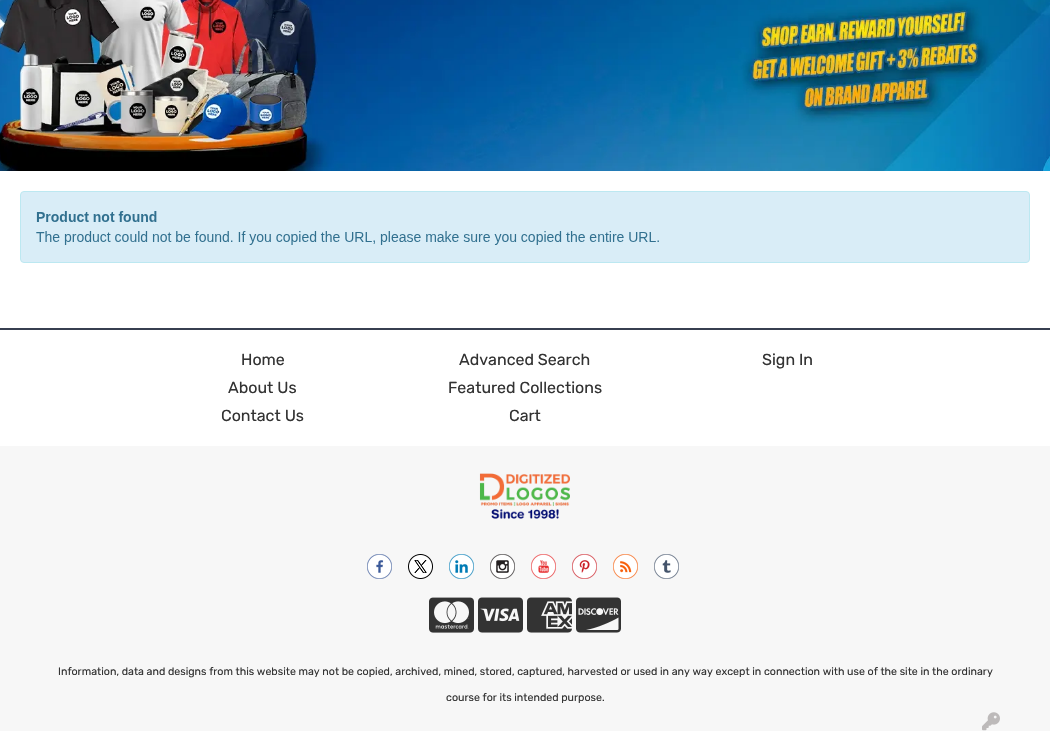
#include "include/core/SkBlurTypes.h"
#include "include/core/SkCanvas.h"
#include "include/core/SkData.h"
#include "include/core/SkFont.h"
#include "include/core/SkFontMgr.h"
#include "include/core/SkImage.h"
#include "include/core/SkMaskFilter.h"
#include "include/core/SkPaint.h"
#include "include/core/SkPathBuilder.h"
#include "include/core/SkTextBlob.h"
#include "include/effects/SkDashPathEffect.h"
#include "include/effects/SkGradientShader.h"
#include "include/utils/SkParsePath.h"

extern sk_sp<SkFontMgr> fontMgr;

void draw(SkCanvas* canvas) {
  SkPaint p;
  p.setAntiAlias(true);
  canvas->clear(SK_ColorWHITE);
  canvas->drawImageRect(SkImages::DeferredFromEncodedData(SkData::MakeFromFileName("images/1.png")), SkRect::MakeLTRB(0, 0, 1050, 171), SkSamplingOptions());
  canvas->drawImageRect(SkImages::DeferredFromEncodedData(SkData::MakeFromFileName("images/2.png")), SkRect::MakeLTRB(20, 191, 1030, 263), SkSamplingOptions());
  p.setColor(SkColorSetRGB(55, 63, 80));
  canvas->drawRect(SkRect::MakeLTRB(0, 328, 1050, 330), p);
  p.setColor(SkColorSetRGB(247, 247, 247));
  canvas->drawRect(SkRect::MakeLTRB(0, 446, 1050, 731), p);
  canvas->drawImageRect(SkImages::DeferredFromEncodedData(SkData::MakeFromFileName("images/3.png")), SkRect::MakeLTRB(479, 473, 570, 519), SkSamplingOptions());
  canvas->drawImageRect(SkImages::DeferredFromEncodedData(SkData::MakeFromFileName("images/4.png")), SkRect::MakeLTRB(367, 554, 392, 579), SkSamplingOptions());
  canvas->drawImageRect(SkImages::DeferredFromEncodedData(SkData::MakeFromFileName("images/5.png")), SkRect::MakeLTRB(408, 554, 433, 579), SkSamplingOptions());
  canvas->drawImageRect(SkImages::DeferredFromEncodedData(SkData::MakeFromFileName("images/6.png")), SkRect::MakeLTRB(449, 554, 474, 579), SkSamplingOptions());
  canvas->drawImageRect(SkImages::DeferredFromEncodedData(SkData::MakeFromFileName("images/7.png")), SkRect::MakeLTRB(490, 554, 515, 579), SkSamplingOptions());
  canvas->drawImageRect(SkImages::DeferredFromEncodedData(SkData::MakeFromFileName("images/8.png")), SkRect::MakeLTRB(531, 554, 556, 579), SkSamplingOptions());
  canvas->drawImageRect(SkImages::DeferredFromEncodedData(SkData::MakeFromFileName("images/9.png")), SkRect::MakeLTRB(572, 554, 597, 579), SkSamplingOptions());
  canvas->drawImageRect(SkImages::DeferredFromEncodedData(SkData::MakeFromFileName("images/10.png")), SkRect::MakeLTRB(613, 554, 638, 579), SkSamplingOptions());
  canvas->drawImageRect(SkImages::DeferredFromEncodedData(SkData::MakeFromFileName("images/11.png")), SkRect::MakeLTRB(654, 554, 679, 579), SkSamplingOptions());
  canvas->drawImageRect(SkImages::DeferredFromEncodedData(SkData::MakeFromFileName("images/12.png")), SkRect::MakeLTRB(429, 597, 474, 633), SkSamplingOptions());
  canvas->drawImageRect(SkImages::DeferredFromEncodedData(SkData::MakeFromFileName("images/13.png")), SkRect::MakeLTRB(478, 597, 523, 633), SkSamplingOptions());
  canvas->drawImageRect(SkImages::DeferredFromEncodedData(SkData::MakeFromFileName("images/14.png")), SkRect::MakeLTRB(527, 597, 572, 633), SkSamplingOptions());
  canvas->drawImageRect(SkImages::DeferredFromEncodedData(SkData::MakeFromFileName("images/15.png")), SkRect::MakeLTRB(576, 597, 621, 633), SkSamplingOptions());
  canvas->drawImageRect(SkImages::DeferredFromEncodedData(SkData::MakeFromFileName("images/16.png")), SkRect::MakeLTRB(982, 712, 1000, 731), SkSamplingOptions());
  SkFont font1(fontMgr->matchFamilyStyle("Rubik", SkFontStyle::Normal()), 16);
  font1.setSubpixel(true);
  p.setColor(SkColorSetRGB(51, 51, 51));
  canvas->drawString("Home", 241, 365, font1, p);
  canvas->drawString("About Us", 228, 393, font1, p);
  canvas->drawString("Contact Us", 221, 421, font1, p);
  canvas->drawString("Advanced Search", 459, 365, font1, p);
  canvas->drawString("Featured Collections", 448, 393, font1, p);
  canvas->drawString("Cart", 509, 421, font1, p);
  canvas->drawString("Sign In", 762, 365, font1, p);
  SkFont font2(fontMgr->matchFamilyStyle("Rubik", SkFontStyle::Normal()), 10.67f);
  font2.setSubpixel(true);
  canvas->drawString("Information, data and designs from this website may not be copied, archived, mined, stored, captured, harvested or used in any way except in connection with use of the site in the ordinary", 58, 675, font2, p);
  canvas->drawString("course for its intended purpose.", 446, 701, font2, p);
}
